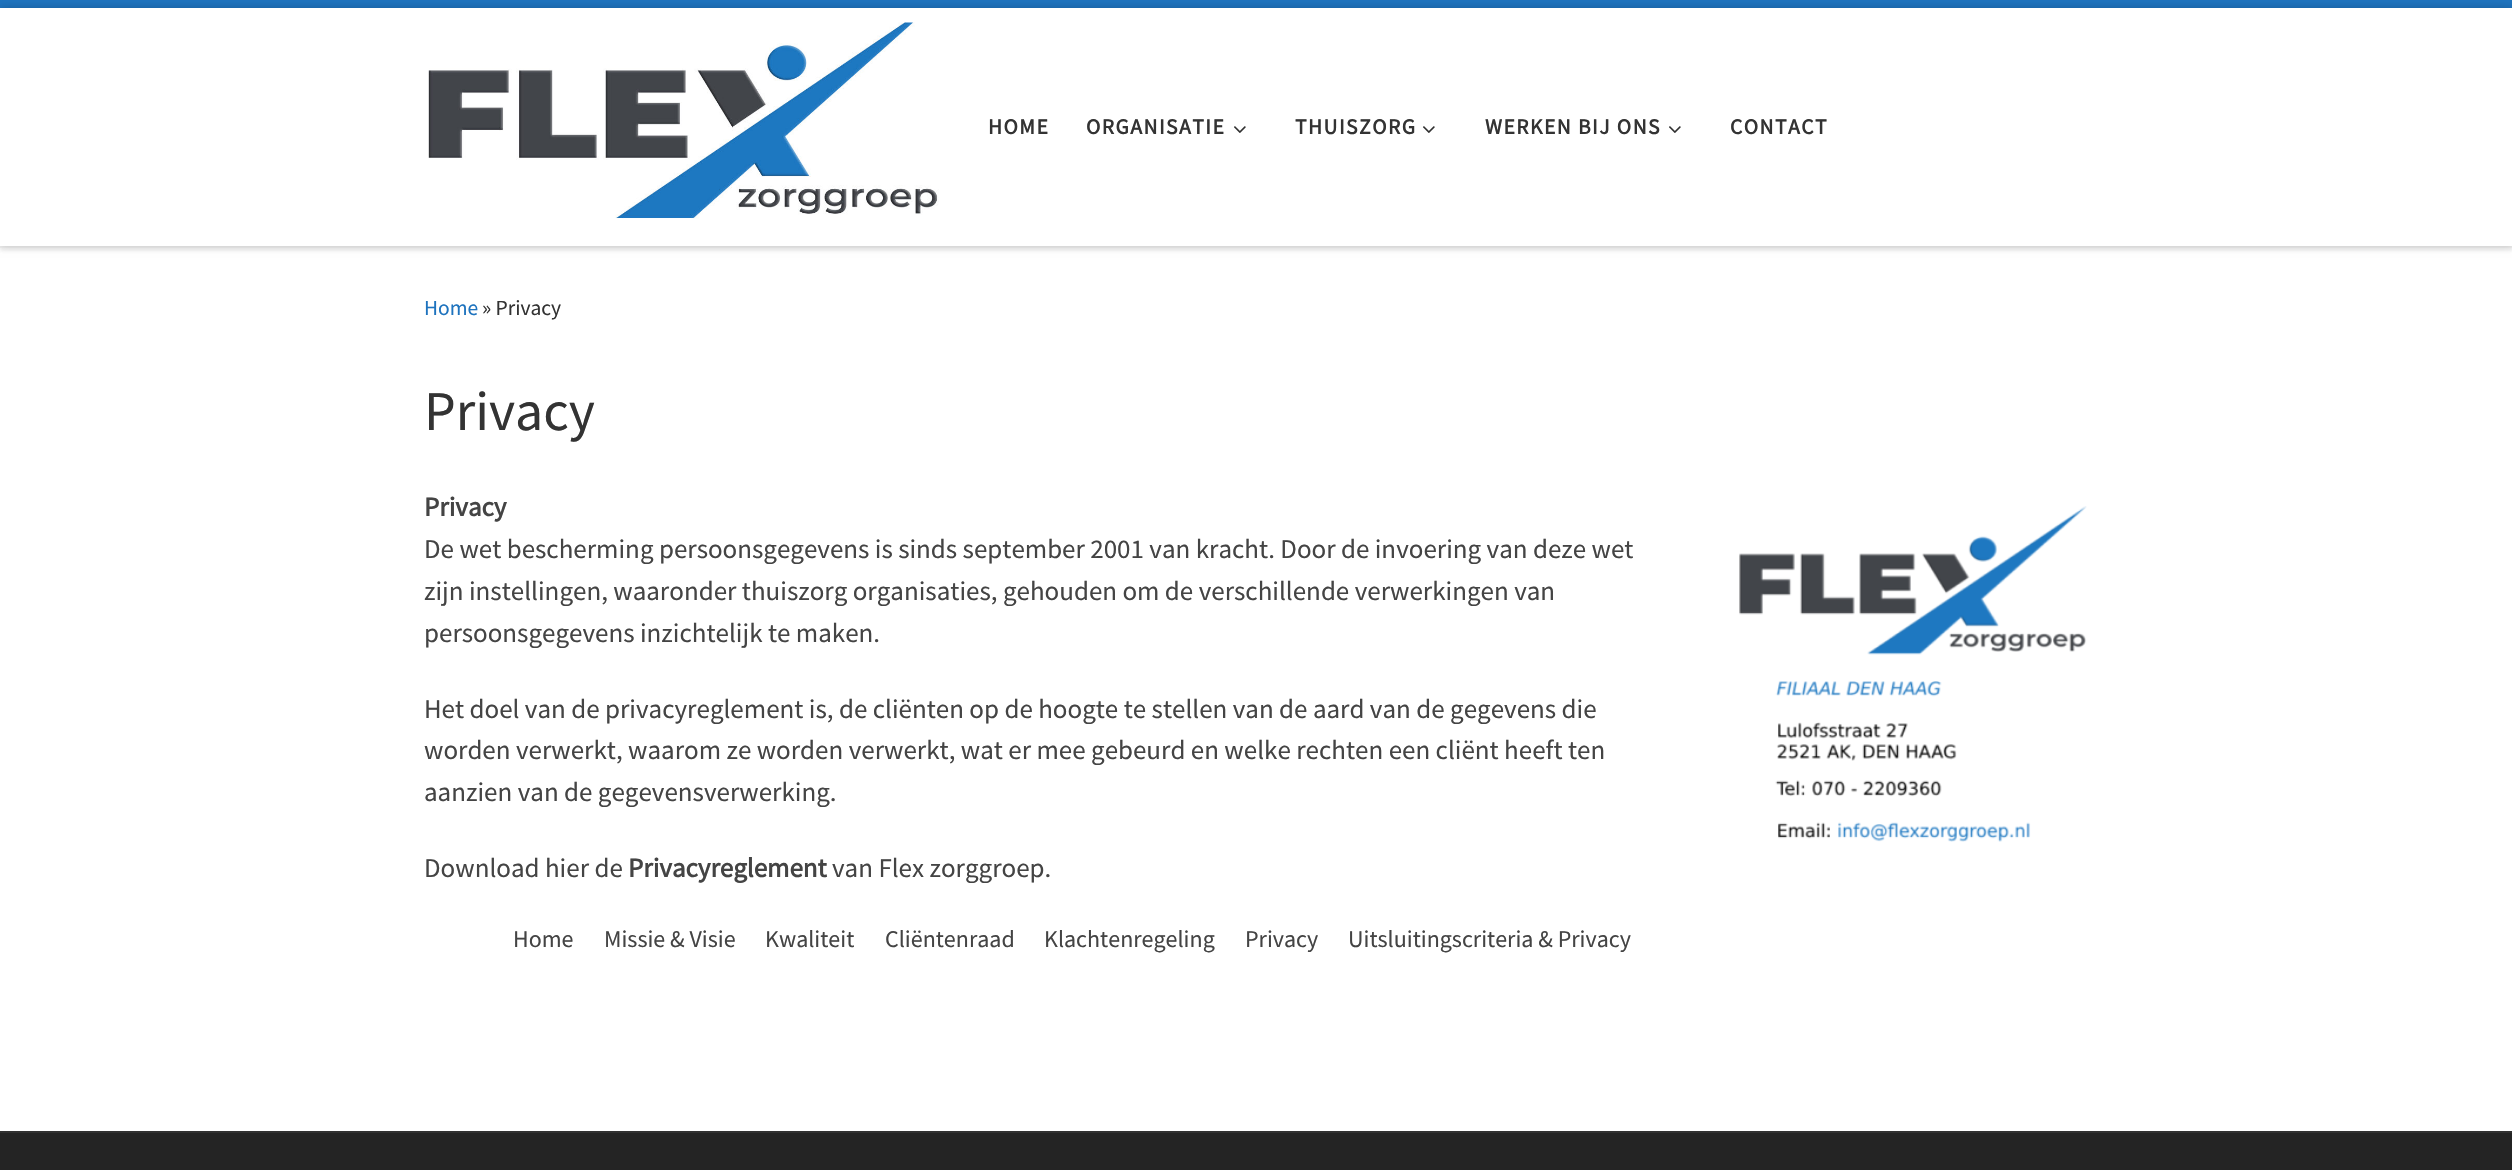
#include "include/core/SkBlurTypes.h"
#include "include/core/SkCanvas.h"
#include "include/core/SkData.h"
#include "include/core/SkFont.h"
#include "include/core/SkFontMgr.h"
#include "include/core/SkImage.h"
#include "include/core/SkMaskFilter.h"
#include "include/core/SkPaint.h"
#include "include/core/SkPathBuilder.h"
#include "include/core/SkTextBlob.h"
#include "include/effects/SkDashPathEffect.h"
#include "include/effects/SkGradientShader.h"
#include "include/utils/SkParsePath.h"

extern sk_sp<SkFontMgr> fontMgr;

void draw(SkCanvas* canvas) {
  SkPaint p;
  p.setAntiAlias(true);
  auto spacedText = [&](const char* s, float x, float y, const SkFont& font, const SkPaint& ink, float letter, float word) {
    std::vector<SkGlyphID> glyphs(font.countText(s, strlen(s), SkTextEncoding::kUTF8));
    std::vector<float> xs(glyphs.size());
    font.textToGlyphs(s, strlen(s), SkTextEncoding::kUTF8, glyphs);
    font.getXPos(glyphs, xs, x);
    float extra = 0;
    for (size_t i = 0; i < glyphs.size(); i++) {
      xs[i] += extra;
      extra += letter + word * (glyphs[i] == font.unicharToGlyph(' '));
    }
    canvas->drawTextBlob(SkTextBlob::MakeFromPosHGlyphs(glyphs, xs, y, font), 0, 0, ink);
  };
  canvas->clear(SK_ColorWHITE);
  p.setColor(SkColorSetARGB(20, 102, 102, 102));
  p.setMaskFilter(SkMaskFilter::MakeBlur(kNormal_SkBlurStyle, 1.5f));
  canvas->drawRect(SkRect::MakeLTRB(0, 3, 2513, 251), p);
  p.setMaskFilter(nullptr);
  p.setColor(SK_ColorWHITE);
  canvas->drawRect(SkRect::MakeLTRB(0, 8, 2512, 246), p);
  p.setColor(SkColorSetRGB(30, 115, 190));
  canvas->drawRect(SkRect::MakeLTRB(0, 0, 2512, 8), p);
  p.setColor(SkColorSetRGB(239, 239, 239));
  canvas->drawPath(SkPathBuilder().moveTo(0, 246).lineTo(0, 248).lineTo(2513, 248).lineTo(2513, 9).lineTo(2512, 9).lineTo(2512, 246).close().detach(), p);
  canvas->save();
  canvas->clipPath(SkPathBuilder(SkPathFillType::kEvenOdd).moveTo(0, 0).lineTo(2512, 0).lineTo(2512, 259).lineTo(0, 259).close().moveTo(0, 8).lineTo(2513, 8).lineTo(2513, 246).lineTo(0, 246).close().detach(), true);
  p.setColor(SkColorSetARGB(51, 0, 0, 0));
  p.setMaskFilter(SkMaskFilter::MakeBlur(kNormal_SkBlurStyle, 4));
  canvas->drawRect(SkRect::MakeLTRB(0, 8, 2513, 246), p);
  p.setMaskFilter(nullptr);
  canvas->restore();
  canvas->drawImageRect(SkImages::DeferredFromEncodedData(SkData::MakeFromFileName("images/1.png")), SkRect::MakeLTRB(428, 22, 939, 219), SkSamplingOptions());
  canvas->drawImageRect(SkImages::DeferredFromEncodedData(SkData::MakeFromFileName("images/2.png")), SkRect::MakeLTRB(1234, 126, 1246, 133), SkSamplingOptions());
  canvas->drawImageRect(SkImages::DeferredFromEncodedData(SkData::MakeFromFileName("images/2.png")), SkRect::MakeLTRB(1423, 126, 1435, 133), SkSamplingOptions());
  canvas->drawImageRect(SkImages::DeferredFromEncodedData(SkData::MakeFromFileName("images/2.png")), SkRect::MakeLTRB(1669, 126, 1681, 133), SkSamplingOptions());
  canvas->drawImageRect(SkImages::DeferredFromEncodedData(SkData::MakeFromFileName("images/3.png")), SkRect::MakeLTRB(1739, 506, 2087, 842), SkSamplingOptions());
  p.setColor(SkColorSetRGB(49, 49, 49));
  canvas->drawRect(SkRect::MakeLTRB(0, 1131, 2512, 1133), p);
  p.setColor(SkColorSetRGB(36, 36, 36));
  canvas->drawRect(SkRect::MakeLTRB(0, 1133, 2512, 1170), p);
  SkFont font1(fontMgr->matchFamilyStyle("Source Sans Pro", SkFontStyle::Bold()), 21.5f);
  font1.setSubpixel(true);
  p.setColor(SkColorSetRGB(51, 51, 51));
  spacedText("HOME", 988, 134, font1, p, 1.5f, 0);
  spacedText("ORGANISATIE", 1086, 134, font1, p, 1.5f, 0);
  spacedText("THUISZORG", 1295, 134, font1, p, 1.5f, 0);
  spacedText("WERKEN BIJ ONS", 1485, 134, font1, p, 1.5f, 0);
  spacedText("CONTACT", 1730, 134, font1, p, 1.5f, 0);
  SkFont font2(fontMgr->matchFamilyStyle("Source Sans Pro", SkFontStyle::Normal()), 21.5f);
  font2.setSubpixel(true);
  p.setColor(SkColorSetRGB(30, 115, 190));
  canvas->drawString("Home", 424, 315, font2, p);
  p.setColor(SkColorSetRGB(51, 51, 51));
  canvas->drawString("» Privacy", 482, 315, font2, p);
  SkFont font3(fontMgr->matchFamilyStyle("Source Sans Pro", SkFontStyle::Normal()), 56);
  font3.setSubpixel(true);
  canvas->drawString("Privacy", 424, 430, font3, p);
  SkFont font4(fontMgr->matchFamilyStyle("Source Sans Pro", SkFontStyle::Bold()), 27);
  font4.setSubpixel(true);
  p.setColor(SkColorSetRGB(68, 68, 68));
  canvas->drawString("Privacy", 424, 516, font4, p);
  SkFont font5(fontMgr->matchFamilyStyle("Source Sans Pro", SkFontStyle::Normal()), 27);
  font5.setSubpixel(true);
  canvas->drawString("De wet bescherming persoonsgegevens is sinds september 2001 van kracht. Door de invoering van deze wet", 424, 558, font5, p);
  canvas->drawString("zijn instellingen, waaronder thuiszorg organisaties, gehouden om de verschillende verwerkingen van", 424, 600, font5, p);
  canvas->drawString("persoonsgegevens inzichtelijk te maken.", 424, 642, font5, p);
  canvas->drawString("Het doel van de privacyreglement is, de cliënten op de hoogte te stellen van de aard van de gegevens die", 424, 718, font5, p);
  canvas->drawString("worden verwerkt, waarom ze worden verwerkt, wat er mee gebeurd en welke rechten een cliënt heeft ten", 424, 759, font5, p);
  canvas->drawString("aanzien van de gegevensverwerking.", 424, 801, font5, p);
  canvas->drawString("Download hier de", 424, 877, font5, p);
  canvas->drawString("Privacyreglement", 628, 877, font4, p);
  canvas->drawString("van Flex zorggroep.", 832, 877, font5, p);
  SkFont font6(fontMgr->matchFamilyStyle("Source Sans Pro", SkFontStyle::Normal()), 24);
  font6.setSubpixel(true);
  canvas->drawString("Home", 513, 947, font6, p);
  canvas->drawString("Missie & Visie", 604, 947, font6, p);
  canvas->drawString("Kwaliteit", 765, 947, font6, p);
  canvas->drawString("Cliëntenraad", 885, 947, font6, p);
  canvas->drawString("Klachtenregeling", 1044, 947, font6, p);
  canvas->drawString("Privacy", 1245, 947, font6, p);
  canvas->drawString("Uitsluitingscriteria & Privacy", 1348, 947, font6, p);
}
